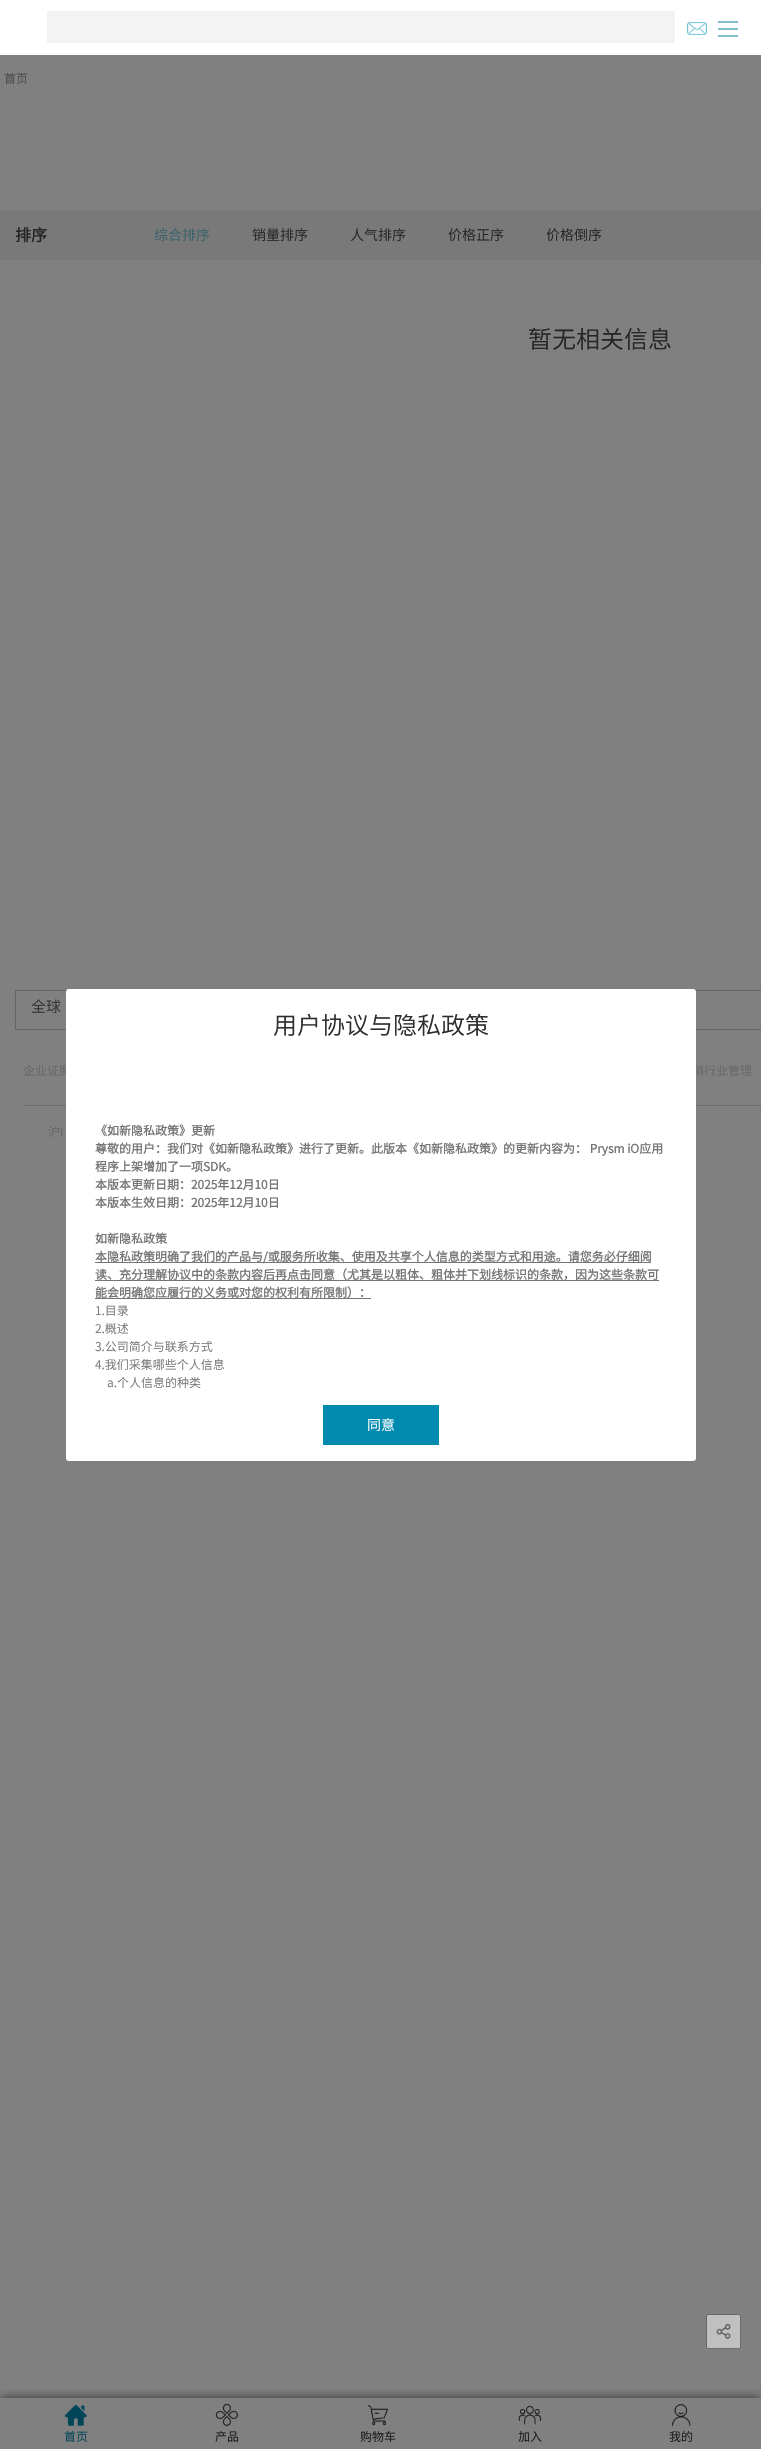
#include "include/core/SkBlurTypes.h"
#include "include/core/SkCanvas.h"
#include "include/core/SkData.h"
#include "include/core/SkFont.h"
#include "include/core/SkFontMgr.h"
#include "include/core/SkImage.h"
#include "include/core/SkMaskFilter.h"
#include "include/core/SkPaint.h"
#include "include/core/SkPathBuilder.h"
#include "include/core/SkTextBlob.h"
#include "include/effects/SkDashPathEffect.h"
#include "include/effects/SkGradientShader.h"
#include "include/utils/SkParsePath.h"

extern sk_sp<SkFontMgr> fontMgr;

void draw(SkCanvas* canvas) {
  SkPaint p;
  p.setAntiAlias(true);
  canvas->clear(SkColorSetRGB(128, 128, 128));
  p.setColor(SkColorSetRGB(121, 121, 121));
  canvas->drawRect(SkRect::MakeLTRB(0, 210, 761, 260), p);
  canvas->drawImageRect(SkImages::DeferredFromEncodedData(SkData::MakeFromFileName("images/1.png")), SkRect::MakeLTRB(706, 2314, 741, 2349), SkSamplingOptions());
  p.setStyle(SkPaint::kStroke_Style);
  p.setStrokeWidth(1);
  p.setColor(SkColorSetRGB(102, 102, 102));
  canvas->drawRect(SkRect::MakeLTRB(15.5f, 990.5f, 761.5f, 1029.5f), p);
  p.setStyle(SkPaint::kFill_Style);
  p.setColor(SkColorSetRGB(111, 111, 111));
  canvas->drawRect(SkRect::MakeLTRB(23, 1105, 761, 1106), p);
  p.setColor(SK_ColorWHITE);
  canvas->drawRect(SkRect::MakeLTRB(0, 0, 761, 55), p);
  p.setColor(SkColorSetRGB(243, 243, 243));
  canvas->drawRect(SkRect::MakeLTRB(47, 11, 675, 43), p);
  canvas->drawImageRect(SkImages::DeferredFromEncodedData(SkData::MakeFromFileName("images/2.png")), SkRect::MakeLTRB(687, 22, 707, 35), SkSamplingOptions());
  p.setColor(SkColorSetRGB(128, 190, 201));
  canvas->drawRect(SkRect::MakeLTRB(718, 21, 738, 23), p);
  canvas->drawRect(SkRect::MakeLTRB(718, 28, 738, 30), p);
  canvas->drawRect(SkRect::MakeLTRB(718, 35, 738, 37), p);
  canvas->save();
  canvas->clipRect(SkRect::MakeLTRB(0, 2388, 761, 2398));
  p.setColor(SkColorSetRGB(51, 51, 51));
  p.setMaskFilter(SkMaskFilter::MakeBlur(kNormal_SkBlurStyle, 5));
  canvas->drawRect(SkRect::MakeLTRB(0, 2398, 761, 2449), p);
  p.setMaskFilter(nullptr);
  canvas->restore();
  canvas->drawImageRect(SkImages::DeferredFromEncodedData(SkData::MakeFromFileName("images/3.png")), SkRect::MakeLTRB(64, 2405, 87, 2426), SkSamplingOptions());
  canvas->drawImageRect(SkImages::DeferredFromEncodedData(SkData::MakeFromFileName("images/4.png")), SkRect::MakeLTRB(215, 2403, 239, 2427), SkSamplingOptions());
  canvas->drawImageRect(SkImages::DeferredFromEncodedData(SkData::MakeFromFileName("images/5.png")), SkRect::MakeLTRB(368, 2405, 388, 2426), SkSamplingOptions());
  canvas->drawImageRect(SkImages::DeferredFromEncodedData(SkData::MakeFromFileName("images/6.png")), SkRect::MakeLTRB(518, 2405, 542, 2425), SkSamplingOptions());
  canvas->drawImageRect(SkImages::DeferredFromEncodedData(SkData::MakeFromFileName("images/7.png")), SkRect::MakeLTRB(671, 2404, 691, 2427), SkSamplingOptions());
  SkFont font1(fontMgr->matchFamilyStyle("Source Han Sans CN", SkFontStyle::Normal()), 12);
  font1.setSubpixel(true);
  p.setColor(SkColorSetRGB(77, 77, 77));
  canvas->drawString("首页", 4, 83, font1, p);
  SkFont font2(fontMgr->matchFamilyStyle("Source Han Sans CN", SkFontStyle::Bold()), 16);
  font2.setSubpixel(true);
  p.setColor(SkColorSetRGB(37, 37, 37));
  canvas->drawString("排序", 15, 241, font2, p);
  SkFont font3(fontMgr->matchFamilyStyle("Source Han Sans CN", SkFontStyle(300, SkFontStyle::kNormal_Width, SkFontStyle::kUpright_Slant)), 14);
  font3.setSubpixel(true);
  p.setColor(SkColorSetRGB(57, 98, 107));
  canvas->drawString("综合排序", 154, 240, font3, p);
  p.setColor(SkColorSetRGB(37, 37, 37));
  canvas->drawString("销量排序", 252, 240, font3, p);
  canvas->drawString("人气排序", 350, 240, font3, p);
  canvas->drawString("价格正序", 448, 240, font3, p);
  canvas->drawString("价格倒序", 546, 240, font3, p);
  SkFont font4(fontMgr->matchFamilyStyle("Source Han Sans CN", SkFontStyle(300, SkFontStyle::kNormal_Width, SkFontStyle::kUpright_Slant)), 24);
  font4.setSubpixel(true);
  canvas->drawString("暂无相关信息", 528, 348, font4, p);
  SkFont font5(fontMgr->matchFamilyStyle("Source Han Sans CN", SkFontStyle(300, SkFontStyle::kNormal_Width, SkFontStyle::kUpright_Slant)), 15);
  font5.setSubpixel(true);
  p.setColor(SkColorSetRGB(51, 51, 51));
  canvas->drawString("全球", 31, 1012, font5, p);
  SkFont font6(fontMgr->matchFamilyStyle("Source Han Sans CN", SkFontStyle(300, SkFontStyle::kNormal_Width, SkFontStyle::kUpright_Slant)), 12);
  font6.setSubpixel(true);
  p.setColor(SkColorSetRGB(102, 102, 102));
  canvas->drawString("企业证照", 23, 1075, font6, p);
  canvas->drawString("销行业管理", 692, 1075, font6, p);
  canvas->drawString("沪I", 48, 1136, font6, p);
  p.setColor(SK_ColorWHITE);
  canvas->drawRoundRect(SkRect::MakeLTRB(66, 989, 696, 1461), 3, 3, p);
  p.setColor(SkColorSetRGB(45, 45, 45));
  canvas->drawString("用户协议与隐私政策", 273, 1034, font4, p);
  SkFont font7(fontMgr->matchFamilyStyle("Source Han Sans CN", SkFontStyle::Bold()), 12);
  font7.setSubpixel(true);
  p.setColor(SkColorSetRGB(117, 117, 117));
  canvas->drawString("《如新隐私政策》更新", 95, 1135, font7, p);
  canvas->drawString("尊敬的用户：我们对《如新隐私政策》进行了更新。此版本《如新隐私政策》的更新内容为： Prysm iO应用", 95, 1153, font7, p);
  canvas->drawString("程序上架增加了一项SDK。", 95, 1171, font7, p);
  canvas->drawString("本版本更新日期：2025年12月10日", 95, 1189, font7, p);
  canvas->drawString("本版本生效日期：2025年12月10日", 95, 1207, font7, p);
  canvas->drawString("如新隐私政策", 95, 1243, font7, p);
  canvas->drawRect(SkRect::MakeLTRB(95, 1262, 651, 1263), p);
  canvas->drawString("本隐私政策明确了我们的产品与/或服务所收集、使用及共享个人信息的类型方式和用途。请您务必仔细阅", 95, 1261, font7, p);
  canvas->drawRect(SkRect::MakeLTRB(95, 1280, 659, 1281), p);
  canvas->drawString("读、充分理解协议中的条款内容后再点击同意（尤其是以粗体、粗体并下划线标识的条款，因为这些条款可", 95, 1279, font7, p);
  canvas->drawRect(SkRect::MakeLTRB(95, 1298, 371, 1299), p);
  canvas->drawString("能会明确您应履行的义务或对您的权利有所限制）：", 95, 1297, font7, p);
  canvas->drawString("1.目录", 95, 1315, font6, p);
  canvas->drawString("2.概述", 95, 1333, font6, p);
  canvas->drawString("3.公司简介与联系方式", 95, 1351, font6, p);
  canvas->drawString("4.我们采集哪些个人信息", 95, 1369, font6, p);
  canvas->drawString("a.个人信息的种类", 107, 1387, font6, p);
  p.setColor(SkColorSetRGB(0, 138, 176));
  canvas->drawRect(SkRect::MakeLTRB(323, 1405, 439, 1445), p);
  p.setColor(SK_ColorWHITE);
  canvas->drawString("同意", 367, 1430, font3, p);
  p.setColor(SkColorSetRGB(0, 69, 88));
  canvas->drawString("首页", 64, 2441, font6, p);
  p.setColor(SkColorSetRGB(23, 23, 23));
  canvas->drawString("产品", 215, 2441, font6, p);
  canvas->drawString("购物车", 360, 2441, font6, p);
  canvas->drawString("加入", 518, 2441, font6, p);
  canvas->drawString("我的", 669, 2441, font6, p);
}
